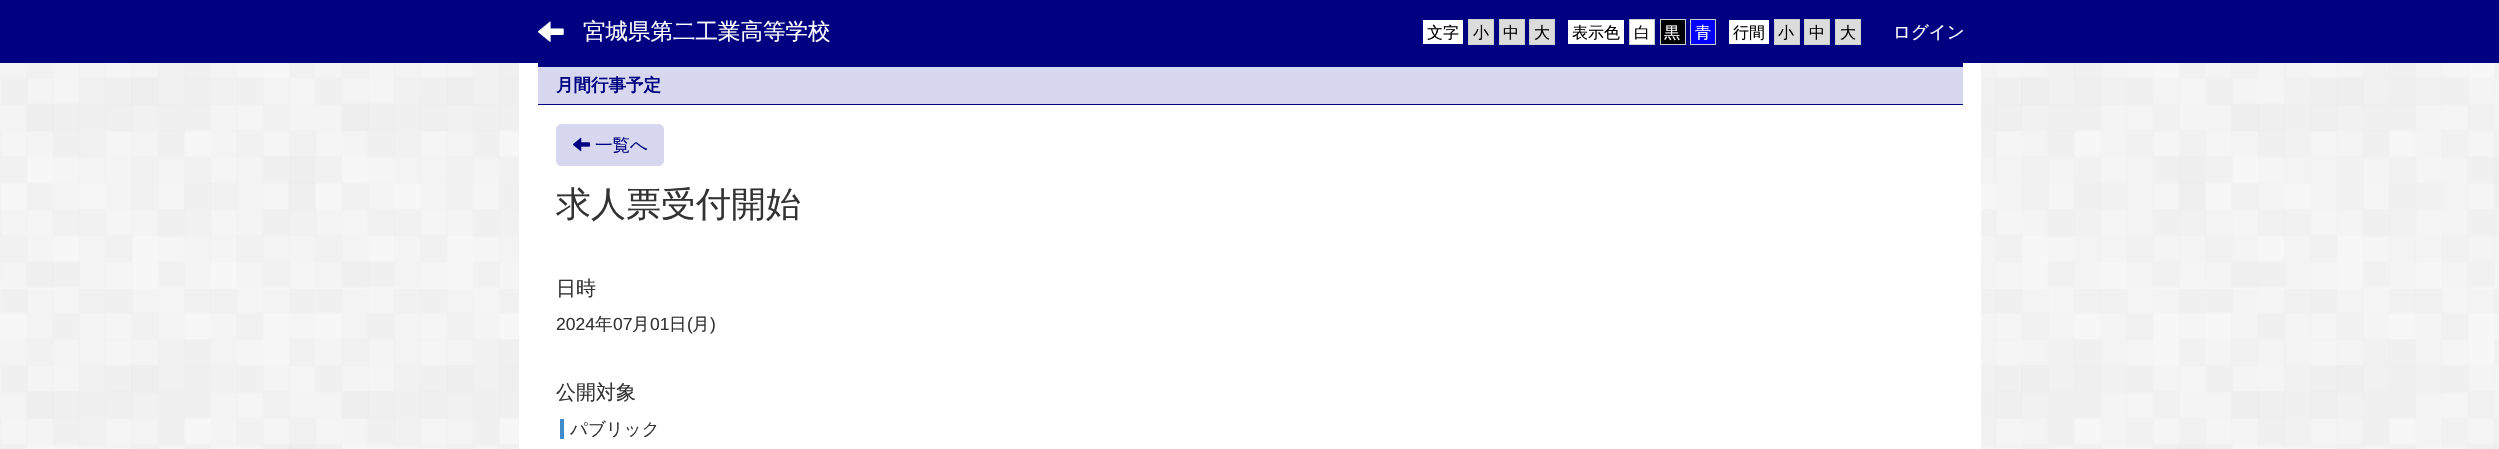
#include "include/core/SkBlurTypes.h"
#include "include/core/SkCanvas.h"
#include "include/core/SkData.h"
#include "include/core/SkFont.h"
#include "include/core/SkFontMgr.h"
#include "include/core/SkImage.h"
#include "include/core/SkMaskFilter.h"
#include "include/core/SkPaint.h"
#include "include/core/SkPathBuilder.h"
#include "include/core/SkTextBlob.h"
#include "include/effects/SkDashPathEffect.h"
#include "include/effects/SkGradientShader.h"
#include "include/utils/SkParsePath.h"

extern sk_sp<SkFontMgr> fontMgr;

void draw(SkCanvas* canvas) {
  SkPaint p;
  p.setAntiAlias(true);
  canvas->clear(SK_ColorWHITE);
  canvas->drawImageRect(SkImages::DeferredFromEncodedData(SkData::MakeFromFileName("images/1.png")), SkRect::MakeLTRB(0, 63, 2499, 449), SkSamplingOptions());
  p.setColor(SkColorSetRGB(0, 0, 128));
  canvas->drawRect(SkRect::MakeLTRB(0, 0, 2499, 63), p);
  canvas->drawImageRect(SkImages::DeferredFromEncodedData(SkData::MakeFromFileName("images/2.png")), SkRect::MakeLTRB(538, 21, 564, 42), SkSamplingOptions());
  p.setColor(SK_ColorWHITE);
  canvas->drawRect(SkRect::MakeLTRB(1423, 20, 1463, 44), p);
  p.setColor(SkColorSetRGB(220, 220, 220));
  canvas->drawRect(SkRect::MakeLTRB(1468.5f, 19.5f, 1493.5f, 44.5f), p);
  p.setStyle(SkPaint::kStroke_Style);
  p.setStrokeWidth(1);
  p.setColor(SkColorSetRGB(205, 205, 205));
  canvas->drawRect(SkRect::MakeLTRB(1468.5f, 19.5f, 1493.5f, 44.5f), p);
  p.setStyle(SkPaint::kFill_Style);
  p.setColor(SkColorSetRGB(220, 220, 220));
  canvas->drawRect(SkRect::MakeLTRB(1499.5f, 19.5f, 1524.5f, 44.5f), p);
  p.setStyle(SkPaint::kStroke_Style);
  p.setColor(SkColorSetRGB(205, 205, 205));
  canvas->drawRect(SkRect::MakeLTRB(1499.5f, 19.5f, 1524.5f, 44.5f), p);
  p.setStyle(SkPaint::kFill_Style);
  p.setColor(SkColorSetRGB(220, 220, 220));
  canvas->drawRect(SkRect::MakeLTRB(1529.5f, 19.5f, 1554.5f, 44.5f), p);
  p.setStyle(SkPaint::kStroke_Style);
  p.setColor(SkColorSetRGB(205, 205, 205));
  canvas->drawRect(SkRect::MakeLTRB(1529.5f, 19.5f, 1554.5f, 44.5f), p);
  p.setStyle(SkPaint::kFill_Style);
  p.setColor(SK_ColorWHITE);
  canvas->drawRect(SkRect::MakeLTRB(1568, 20, 1624, 44), p);
  canvas->drawRect(SkRect::MakeLTRB(1629.5f, 19.5f, 1654.5f, 44.5f), p);
  p.setStyle(SkPaint::kStroke_Style);
  p.setColor(SkColorSetRGB(205, 205, 205));
  canvas->drawRect(SkRect::MakeLTRB(1629.5f, 19.5f, 1654.5f, 44.5f), p);
  p.setStyle(SkPaint::kFill_Style);
  p.setColor(SK_ColorBLACK);
  canvas->drawRect(SkRect::MakeLTRB(1660.5f, 19.5f, 1685.5f, 44.5f), p);
  p.setStyle(SkPaint::kStroke_Style);
  p.setColor(SkColorSetRGB(205, 205, 205));
  canvas->drawRect(SkRect::MakeLTRB(1660.5f, 19.5f, 1685.5f, 44.5f), p);
  p.setStyle(SkPaint::kFill_Style);
  p.setColor(SkColorSetRGB(0, 0, 255));
  canvas->drawRect(SkRect::MakeLTRB(1690.5f, 19.5f, 1715.5f, 44.5f), p);
  p.setStyle(SkPaint::kStroke_Style);
  p.setColor(SkColorSetRGB(205, 205, 205));
  canvas->drawRect(SkRect::MakeLTRB(1690.5f, 19.5f, 1715.5f, 44.5f), p);
  p.setStyle(SkPaint::kFill_Style);
  p.setColor(SK_ColorWHITE);
  canvas->drawRect(SkRect::MakeLTRB(1729, 20, 1769, 44), p);
  p.setColor(SkColorSetRGB(220, 220, 220));
  canvas->drawRect(SkRect::MakeLTRB(1774.5f, 19.5f, 1799.5f, 44.5f), p);
  p.setStyle(SkPaint::kStroke_Style);
  p.setColor(SkColorSetRGB(205, 205, 205));
  canvas->drawRect(SkRect::MakeLTRB(1774.5f, 19.5f, 1799.5f, 44.5f), p);
  p.setStyle(SkPaint::kFill_Style);
  p.setColor(SkColorSetRGB(220, 220, 220));
  canvas->drawRect(SkRect::MakeLTRB(1804.5f, 19.5f, 1829.5f, 44.5f), p);
  p.setStyle(SkPaint::kStroke_Style);
  p.setColor(SkColorSetRGB(205, 205, 205));
  canvas->drawRect(SkRect::MakeLTRB(1804.5f, 19.5f, 1829.5f, 44.5f), p);
  p.setStyle(SkPaint::kFill_Style);
  p.setColor(SkColorSetRGB(220, 220, 220));
  canvas->drawRect(SkRect::MakeLTRB(1835.5f, 19.5f, 1860.5f, 44.5f), p);
  p.setStyle(SkPaint::kStroke_Style);
  p.setColor(SkColorSetRGB(205, 205, 205));
  canvas->drawRect(SkRect::MakeLTRB(1835.5f, 19.5f, 1860.5f, 44.5f), p);
  p.setStyle(SkPaint::kFill_Style);
  p.setColor(SK_ColorWHITE);
  canvas->drawRect(SkRect::MakeLTRB(519, 63, 1981, 449), p);
  p.setColor(SkColorSetRGB(215, 215, 239));
  canvas->drawRect(SkRect::MakeLTRB(538, 67, 1963, 104), p);
  p.setColor(SkColorSetRGB(0, 0, 128));
  canvas->drawRect(SkRect::MakeLTRB(538, 63, 1963, 67), p);
  canvas->drawRect(SkRect::MakeLTRB(538, 104, 1963, 105), p);
  p.setColor(SkColorSetRGB(215, 215, 239));
  canvas->drawRoundRect(SkRect::MakeLTRB(556.5f, 124.5f, 663.5f, 165.5f), 4.5f, 4.5f, p);
  p.setStyle(SkPaint::kStroke_Style);
  canvas->drawRoundRect(SkRect::MakeLTRB(556.5f, 124.5f, 663.5f, 165.5f), 4.5f, 4.5f, p);
  canvas->drawImageRect(SkImages::DeferredFromEncodedData(SkData::MakeFromFileName("images/3.png")), SkRect::MakeLTRB(572, 137, 590, 152), SkSamplingOptions());
  p.setStyle(SkPaint::kFill_Style);
  p.setColor(SkColorSetRGB(66, 139, 202));
  canvas->drawRect(SkRect::MakeLTRB(560, 419, 564, 439), p);
  SkFont font1(fontMgr->matchFamilyStyle("WenQuanYi Zen Hei", SkFontStyle(500, SkFontStyle::kNormal_Width, SkFontStyle::kUpright_Slant)), 22.5f);
  font1.setSubpixel(true);
  p.setColor(SK_ColorWHITE);
  canvas->drawString("宮城県第二工業高等学校", 583, 39, font1, p);
  SkFont font2(fontMgr->matchFamilyStyle("WenQuanYi Zen Hei", SkFontStyle(500, SkFontStyle::kNormal_Width, SkFontStyle::kUpright_Slant)), 16);
  font2.setSubpixel(true);
  p.setColor(SK_ColorBLACK);
  canvas->drawString("文字", 1427, 38, font2, p);
  canvas->drawString("小", 1473, 38, font2, p);
  canvas->drawString("中", 1503, 38, font2, p);
  canvas->drawString("大", 1534, 38, font2, p);
  canvas->drawString("表示色", 1572, 38, font2, p);
  canvas->drawString("白", 1634, 38, font2, p);
  p.setColor(SK_ColorWHITE);
  canvas->drawString("黒", 1664, 38, font2, p);
  canvas->drawString("青", 1695, 38, font2, p);
  p.setColor(SK_ColorBLACK);
  canvas->drawString("行間", 1733, 38, font2, p);
  canvas->drawString("小", 1778, 38, font2, p);
  canvas->drawString("中", 1809, 38, font2, p);
  canvas->drawString("大", 1840, 38, font2, p);
  SkFont font3(fontMgr->matchFamilyStyle("WenQuanYi Zen Hei", SkFontStyle(500, SkFontStyle::kNormal_Width, SkFontStyle::kUpright_Slant)), 17.5f);
  font3.setSubpixel(true);
  p.setColor(SK_ColorWHITE);
  canvas->drawString("ログイン", 1893, 38, font3, p);
  SkFont font4(fontMgr->matchFamilyStyle("WenQuanYi Zen Hei", SkFontStyle::Bold()), 17.5f);
  font4.setSubpixel(true);
  p.setColor(SkColorSetRGB(0, 0, 128));
  canvas->drawString("月間行事予定", 556, 91, font4, p);
  canvas->drawString("一覧へ", 595, 151, font3, p);
  SkFont font5(fontMgr->matchFamilyStyle("WenQuanYi Zen Hei", SkFontStyle(500, SkFontStyle::kNormal_Width, SkFontStyle::kUpright_Slant)), 35);
  font5.setSubpixel(true);
  p.setColor(SkColorSetRGB(51, 51, 51));
  canvas->drawString("求人票受付開始", 556, 216, font5, p);
  SkFont font6(fontMgr->matchFamilyStyle("WenQuanYi Zen Hei", SkFontStyle(500, SkFontStyle::kNormal_Width, SkFontStyle::kUpright_Slant)), 20);
  font6.setSubpixel(true);
  canvas->drawString("日時", 556, 295, font6, p);
  SkFont font7(fontMgr->matchFamilyStyle("Liberation Sans", SkFontStyle::Normal()), 17.5f);
  font7.setSubpixel(true);
  canvas->drawString("2024", 556, 330, font7, p);
  canvas->drawString("年", 595, 330, font3, p);
  canvas->drawString("07", 613, 330, font7, p);
  canvas->drawString("月", 632, 330, font3, p);
  canvas->drawString("01", 650, 330, font7, p);
  canvas->drawString("日", 669, 330, font3, p);
  canvas->drawString("(", 687, 330, font7, p);
  canvas->drawString("月", 692, 330, font3, p);
  canvas->drawString(")", 710, 330, font7, p);
  canvas->drawString("公開対象", 556, 399, font6, p);
  canvas->drawString("パブリック", 570, 435, font3, p);
}
